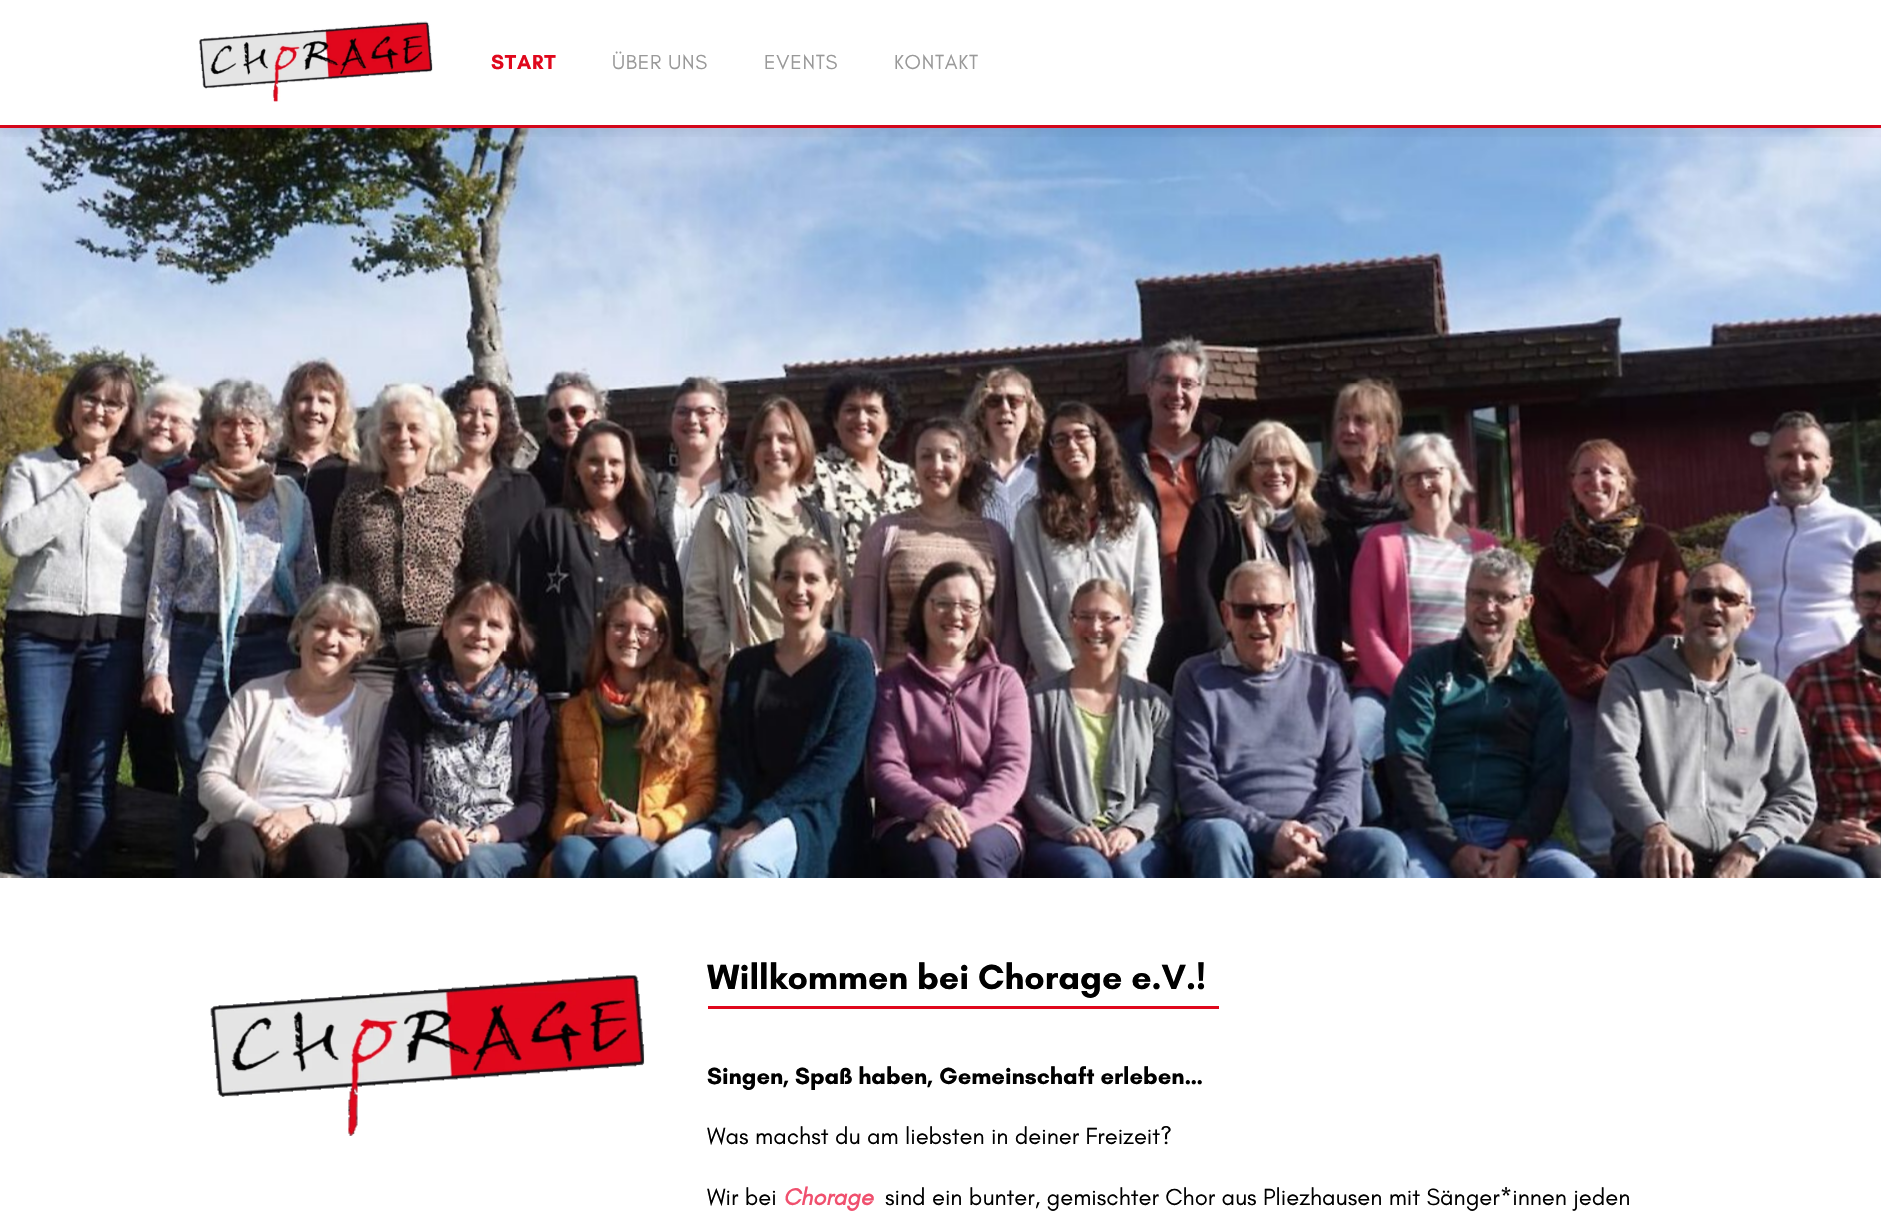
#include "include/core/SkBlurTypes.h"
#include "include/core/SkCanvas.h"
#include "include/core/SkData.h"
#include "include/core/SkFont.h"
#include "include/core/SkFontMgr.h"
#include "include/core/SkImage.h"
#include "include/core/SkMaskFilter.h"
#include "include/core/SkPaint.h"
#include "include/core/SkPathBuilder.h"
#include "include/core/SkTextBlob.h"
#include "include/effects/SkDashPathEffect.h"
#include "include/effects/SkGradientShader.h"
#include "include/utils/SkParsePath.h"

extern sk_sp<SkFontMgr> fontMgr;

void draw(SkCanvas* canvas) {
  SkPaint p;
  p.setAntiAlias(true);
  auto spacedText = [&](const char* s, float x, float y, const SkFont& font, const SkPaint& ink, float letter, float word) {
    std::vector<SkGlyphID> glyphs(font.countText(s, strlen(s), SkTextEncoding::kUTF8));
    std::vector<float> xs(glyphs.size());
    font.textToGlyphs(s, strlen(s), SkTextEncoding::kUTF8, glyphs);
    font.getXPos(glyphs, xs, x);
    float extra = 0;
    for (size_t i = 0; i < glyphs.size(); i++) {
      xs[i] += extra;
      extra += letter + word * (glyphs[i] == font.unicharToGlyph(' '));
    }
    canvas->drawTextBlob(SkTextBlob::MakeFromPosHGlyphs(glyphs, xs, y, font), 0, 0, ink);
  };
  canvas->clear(SK_ColorWHITE);
  p.setColor(SkColorSetRGB(224, 7, 28));
  canvas->drawRect(SkRect::MakeLTRB(0, 125, 1881, 128), p);
  canvas->drawImageRect(SkImages::DeferredFromEncodedData(SkData::MakeFromFileName("images/2.png")), SkRect::MakeLTRB(0, 128, 1881, 878), SkSamplingOptions());
  canvas->save();
  canvas->clipRect(SkRect::MakeLTRB(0, 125, 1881, 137));
  p.setColor(SkColorSetARGB(20, 0, 0, 0));
  p.setMaskFilter(SkMaskFilter::MakeBlur(kNormal_SkBlurStyle, 9.5f));
  canvas->drawRect(SkRect::MakeLTRB(0, 6, 1881, 131), p);
  p.setMaskFilter(nullptr);
  canvas->restore();
  canvas->drawImageRect(SkImages::DeferredFromEncodedData(SkData::MakeFromFileName("images/1.png")), SkRect::MakeLTRB(199, 21, 433, 102), SkSamplingOptions());
  canvas->drawImageRect(SkImages::DeferredFromEncodedData(SkData::MakeFromFileName("images/3.png")), SkRect::MakeLTRB(210, 975, 645, 1136), SkSamplingOptions());
  p.setColor(SkColorSetRGB(224, 7, 28));
  canvas->drawRect(SkRect::MakeLTRB(708, 1006, 1219, 1009), p);
  SkFont font1(fontMgr->matchFamilyStyle("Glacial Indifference", SkFontStyle::Bold()), 20.75f);
  font1.setSubpixel(true);
  spacedText("START", 491, 69, font1, p, 0.75f, 0);
  SkFont font2(fontMgr->matchFamilyStyle("Glacial Indifference", SkFontStyle::Normal()), 20.75f);
  font2.setSubpixel(true);
  p.setColor(SkColorSetRGB(153, 153, 153));
  spacedText("ÜBER UNS", 612, 69, font2, p, 0.75f, 0);
  spacedText("EVENTS", 764, 69, font2, p, 0.75f, 0);
  spacedText("KONTAKT", 894, 69, font2, p, 0.75f, 0);
  SkFont font3(fontMgr->matchFamilyStyle("Glacial Indifference", SkFontStyle::Bold()), 35.6f);
  font3.setSubpixel(true);
  p.setColor(SK_ColorBLACK);
  canvas->drawString("Willkommen bei Chorage e.V.!", 707, 989, font3, p);
  SkFont font4(fontMgr->matchFamilyStyle("Glacial Indifference", SkFontStyle::Bold()), 23.75f);
  font4.setSubpixel(true);
  canvas->drawString("Singen, Spaß haben, Gemeinschaft erleben…", 707, 1084, font4, p);
  SkFont font5(fontMgr->matchFamilyStyle("Glacial Indifference", SkFontStyle::Normal()), 23.75f);
  font5.setSubpixel(true);
  canvas->drawString("Was machst du am liebsten in deiner Freizeit?", 707, 1144, font5, p);
  canvas->drawString("Wir bei", 707, 1205, font5, p);
  SkFont font6(fontMgr->matchFamilyStyle("Glacial Indifference", SkFontStyle::BoldItalic()), 23.75f);
  font6.setSubpixel(true);
  p.setColor(SkColorSetRGB(240, 80, 110));
  canvas->drawString("Chorage", 783, 1205, font6, p);
  p.setColor(SK_ColorBLACK);
  canvas->drawString("sind ein bunter, gemischter Chor aus Pliezhausen mit Sänger*innen jeden", 885, 1205, font5, p);
}
